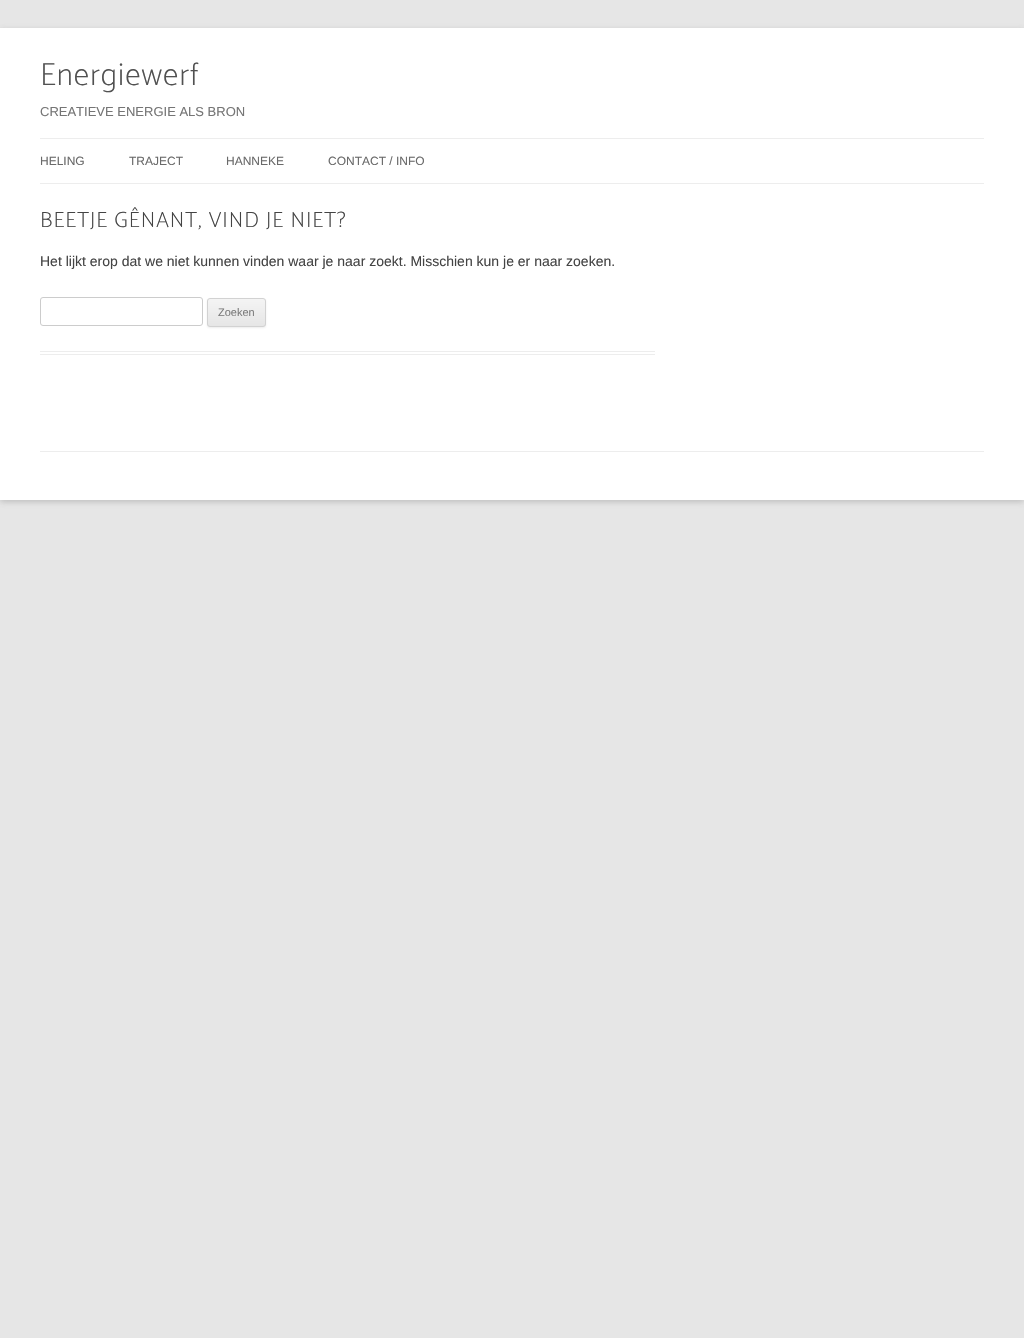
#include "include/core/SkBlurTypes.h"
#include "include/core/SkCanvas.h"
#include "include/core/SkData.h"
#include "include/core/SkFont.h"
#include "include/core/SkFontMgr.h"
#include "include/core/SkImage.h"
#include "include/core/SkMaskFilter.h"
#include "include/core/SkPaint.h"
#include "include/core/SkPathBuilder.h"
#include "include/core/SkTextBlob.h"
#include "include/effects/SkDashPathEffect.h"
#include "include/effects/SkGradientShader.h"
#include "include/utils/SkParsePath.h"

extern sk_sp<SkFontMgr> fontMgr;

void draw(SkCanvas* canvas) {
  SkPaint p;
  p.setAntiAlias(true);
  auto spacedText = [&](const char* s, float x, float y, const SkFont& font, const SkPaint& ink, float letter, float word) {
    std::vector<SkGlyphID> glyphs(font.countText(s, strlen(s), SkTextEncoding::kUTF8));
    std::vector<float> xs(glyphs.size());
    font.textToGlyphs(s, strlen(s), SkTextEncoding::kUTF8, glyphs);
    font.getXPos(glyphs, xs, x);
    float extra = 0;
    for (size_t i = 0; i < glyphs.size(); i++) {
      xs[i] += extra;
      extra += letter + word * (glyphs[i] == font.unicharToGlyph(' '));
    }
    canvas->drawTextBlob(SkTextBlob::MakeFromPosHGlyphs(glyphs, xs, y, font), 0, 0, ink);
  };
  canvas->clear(SkColorSetRGB(230, 230, 230));
  p.setColor(SkColorSetARGB(77, 100, 100, 100));
  p.setMaskFilter(SkMaskFilter::MakeBlur(kNormal_SkBlurStyle, 3));
  canvas->drawRect(SkRect::MakeLTRB(0, 30, 1024, 502), p);
  p.setMaskFilter(nullptr);
  p.setColor(SK_ColorWHITE);
  canvas->drawRect(SkRect::MakeLTRB(0, 28, 1024, 500), p);
  p.setColor(SkColorSetRGB(237, 237, 237));
  canvas->drawRect(SkRect::MakeLTRB(40, 138, 984, 139), p);
  canvas->drawRect(SkRect::MakeLTRB(40, 183, 984, 184), p);
  canvas->drawRect(SkRect::MakeLTRB(40, 351, 655, 352), p);
  canvas->drawRect(SkRect::MakeLTRB(40, 354, 655, 355), p);
  p.setStyle(SkPaint::kStroke_Style);
  p.setStrokeWidth(1);
  p.setColor(SkColorSetRGB(204, 204, 204));
  canvas->drawRoundRect(SkRect::MakeLTRB(40.5f, 297.5f, 202.5f, 325.5f), 2.5f, 2.5f, p);
  p.setStyle(SkPaint::kFill_Style);
  p.setColor(SkColorSetARGB(26, 64, 64, 64));
  p.setMaskFilter(SkMaskFilter::MakeBlur(kNormal_SkBlurStyle, 1));
  canvas->drawRoundRect(SkRect::MakeLTRB(207, 299, 266, 328), 3, 3, p);
  p.setMaskFilter(nullptr);
  canvas->save();
  canvas->clipPath(SkPathBuilder().moveTo(210, 298).lineTo(263, 298).cubicTo(264.5f, 298, 266, 299.5f, 266, 301).lineTo(266, 324).cubicTo(266, 325.5f, 264.5f, 327, 263, 327).lineTo(210, 327).cubicTo(208.5f, 327, 207, 325.5f, 207, 324).lineTo(207, 301).cubicTo(207, 299.5f, 208.5f, 298, 210, 298).close().detach(), true);
  {
    const SkColor colors[] = {SkColorSetRGB(244, 244, 244), SkColorSetRGB(230, 230, 230)};
    const float stops[] = {0, 1};
    const SkPoint ends[] = {{237, 299}, {237, 326}};
    p.setShader(SkGradientShader::MakeLinear(ends, colors, stops, 2, SkTileMode::kClamp));
    p.setAlpha(255);
  }
  canvas->drawRect(SkRect::MakeLTRB(207, 299, 266, 326), p);
  canvas->restore();
  p.setStyle(SkPaint::kStroke_Style);
  p.setShader(nullptr);
  p.setColor(SkColorSetRGB(210, 210, 210));
  canvas->drawRoundRect(SkRect::MakeLTRB(207.5f, 298.5f, 265.5f, 326.5f), 2.5f, 2.5f, p);
  p.setStyle(SkPaint::kFill_Style);
  p.setColor(SkColorSetRGB(237, 237, 237));
  canvas->drawRect(SkRect::MakeLTRB(40, 451, 984, 452), p);
  SkFont font1(fontMgr->matchFamilyStyle("Catamaran", SkFontStyle(100, SkFontStyle::kNormal_Width, SkFontStyle::kUpright_Slant)), 32);
  font1.setSubpixel(true);
  p.setColor(SkColorSetRGB(81, 81, 81));
  spacedText("Energiewerf", 40, 85, font1, p, 1, 0);
  SkFont font2(fontMgr->matchFamilyStyle("Liberation Sans", SkFontStyle::Normal()), 13);
  font2.setSubpixel(true);
  p.setColor(SkColorSetRGB(117, 117, 117));
  canvas->drawString("CREATIEVE ENERGIE ALS BRON", 40, 116, font2, p);
  SkFont font3(fontMgr->matchFamilyStyle("Liberation Sans", SkFontStyle::Normal()), 12);
  font3.setSubpixel(true);
  p.setColor(SkColorSetRGB(106, 106, 106));
  canvas->drawString("HELING", 40, 165, font3, p);
  canvas->drawString("TRAJECT", 129, 165, font3, p);
  canvas->drawString("HANNEKE", 226, 165, font3, p);
  canvas->drawString("CONTACT / INFO", 328, 165, font3, p);
  SkFont font4(fontMgr->matchFamilyStyle("Catamaran", SkFontStyle(100, SkFontStyle::kNormal_Width, SkFontStyle::kUpright_Slant)), 22);
  font4.setSubpixel(true);
  p.setColor(SkColorSetRGB(68, 68, 68));
  spacedText("BEETJE GÊNANT, VIND JE NIET?", 40, 227, font4, p, 1, 0);
  SkFont font5(fontMgr->matchFamilyStyle("Liberation Sans", SkFontStyle::Normal()), 14);
  font5.setSubpixel(true);
  canvas->drawString("Het lijkt erop dat we niet kunnen vinden waar je naar zoekt. Misschien kun je er naar zoeken.", 40, 266, font5, p);
  SkFont font6(fontMgr->matchFamilyStyle("Liberation Sans", SkFontStyle::Normal()), 11);
  font6.setSubpixel(true);
  p.setColor(SkColorSetRGB(124, 124, 124));
  canvas->drawString("Zoeken", 218, 316, font6, p);
}
